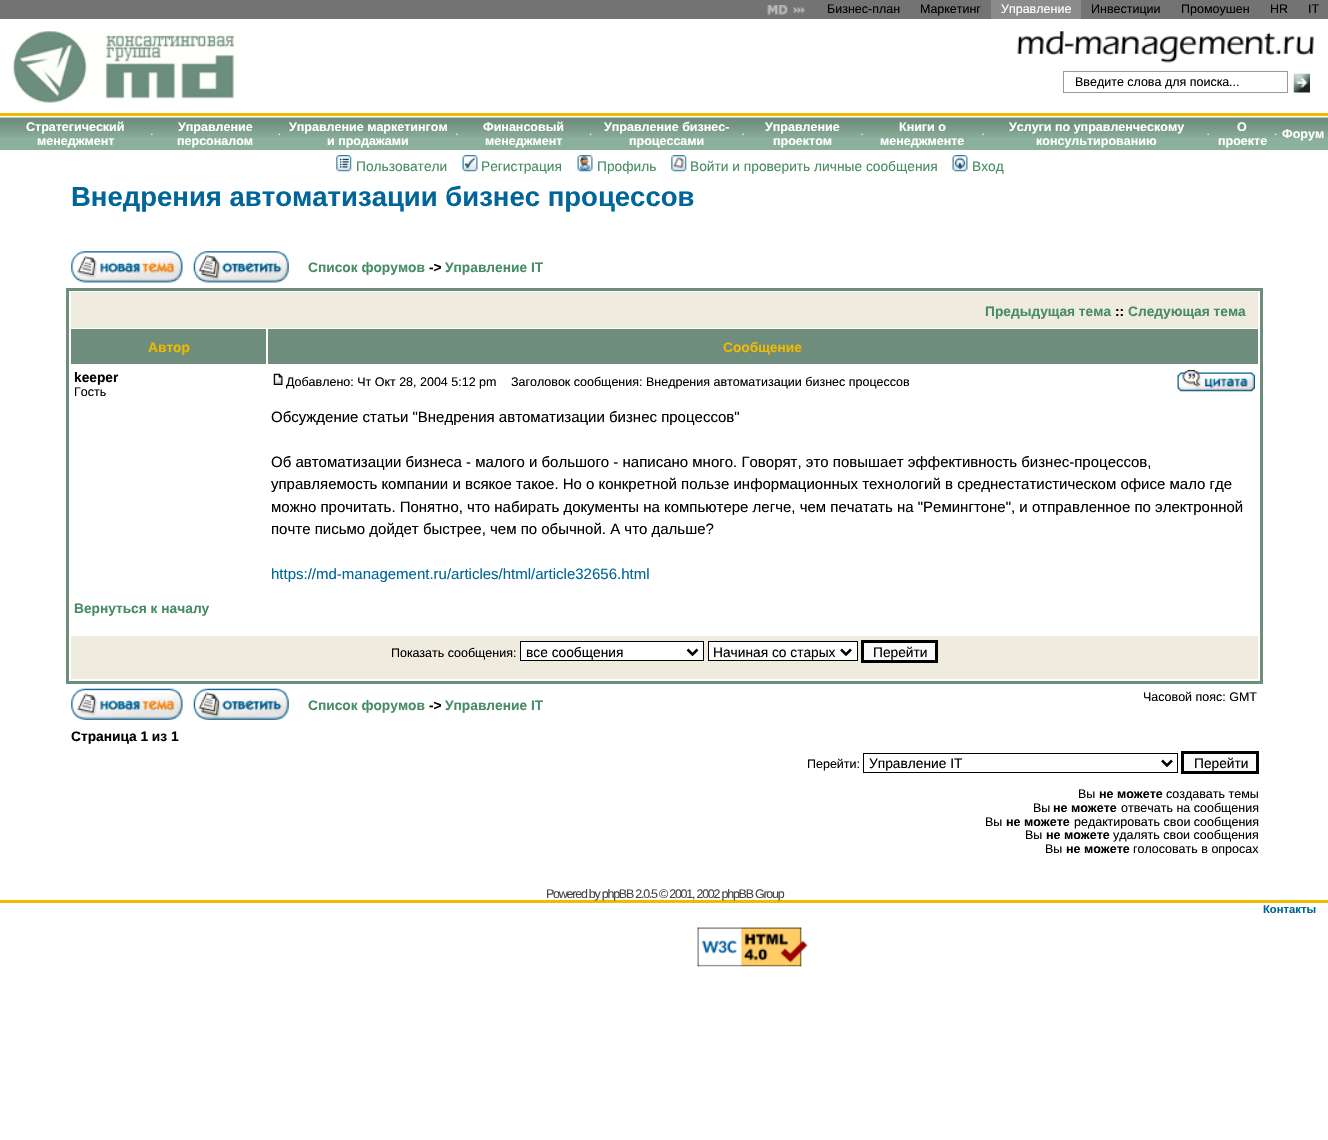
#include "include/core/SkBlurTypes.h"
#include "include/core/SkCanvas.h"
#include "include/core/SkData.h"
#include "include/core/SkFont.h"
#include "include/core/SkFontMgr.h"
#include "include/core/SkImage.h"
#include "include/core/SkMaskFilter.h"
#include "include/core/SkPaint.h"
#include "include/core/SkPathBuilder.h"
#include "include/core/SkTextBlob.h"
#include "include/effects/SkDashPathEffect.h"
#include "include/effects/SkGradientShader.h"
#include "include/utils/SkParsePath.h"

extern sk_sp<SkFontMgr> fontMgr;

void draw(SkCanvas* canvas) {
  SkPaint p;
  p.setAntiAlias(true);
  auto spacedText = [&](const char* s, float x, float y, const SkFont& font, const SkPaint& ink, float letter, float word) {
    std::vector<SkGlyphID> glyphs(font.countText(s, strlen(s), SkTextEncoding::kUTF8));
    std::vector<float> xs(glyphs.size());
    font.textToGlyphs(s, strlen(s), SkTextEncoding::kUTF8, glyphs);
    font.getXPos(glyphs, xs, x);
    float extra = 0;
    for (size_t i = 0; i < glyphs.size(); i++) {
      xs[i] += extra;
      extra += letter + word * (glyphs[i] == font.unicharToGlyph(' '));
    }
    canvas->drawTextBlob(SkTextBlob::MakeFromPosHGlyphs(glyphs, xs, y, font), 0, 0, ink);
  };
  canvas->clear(SK_ColorWHITE);
  p.setColor(SkColorSetRGB(115, 115, 115));
  canvas->drawRect(SkRect::MakeLTRB(0, 0, 1328, 19), p);
  canvas->drawImageRect(SkImages::DeferredFromEncodedData(SkData::MakeFromFileName("images/1.png")), SkRect::MakeLTRB(767, 5, 805, 15), SkSamplingOptions());
  p.setColor(SkColorSetRGB(140, 140, 140));
  canvas->drawRect(SkRect::MakeLTRB(991, 0, 1081, 19), p);
  canvas->drawImageRect(SkImages::DeferredFromEncodedData(SkData::MakeFromFileName("images/2.png")), SkRect::MakeLTRB(13, 31, 234, 103), SkSamplingOptions());
  canvas->drawImageRect(SkImages::DeferredFromEncodedData(SkData::MakeFromFileName("images/3.png")), SkRect::MakeLTRB(1017, 31, 1314, 63), SkSamplingOptions());
  p.setStyle(SkPaint::kStroke_Style);
  p.setStrokeWidth(1);
  p.setColor(SkColorSetRGB(154, 154, 154));
  canvas->drawRect(SkRect::MakeLTRB(1063.5f, 71.5f, 1287.5f, 92.5f), p);
  canvas->drawImageRect(SkImages::DeferredFromEncodedData(SkData::MakeFromFileName("images/4.png")), SkRect::MakeLTRB(1293, 73, 1310, 93), SkSamplingOptions());
  p.setStyle(SkPaint::kFill_Style);
  p.setColor(SkColorSetRGB(239, 186, 0));
  canvas->drawRect(SkRect::MakeLTRB(0, 113, 1328, 116), p);
  p.setColor(SkColorSetRGB(139, 176, 156));
  canvas->drawRect(SkRect::MakeLTRB(0, 138, 1328, 150), p);
  canvas->drawImageRect(SkImages::DeferredFromEncodedData(SkData::MakeFromFileName("images/5.png")), SkRect::MakeLTRB(0, 117, 1328, 138), SkSamplingOptions());
  canvas->drawImageRect(SkImages::DeferredFromEncodedData(SkData::MakeFromFileName("images/6.png")), SkRect::MakeLTRB(151, 133, 153, 135), SkSamplingOptions());
  canvas->drawImageRect(SkImages::DeferredFromEncodedData(SkData::MakeFromFileName("images/7.png")), SkRect::MakeLTRB(278, 133, 280, 135), SkSamplingOptions());
  canvas->drawImageRect(SkImages::DeferredFromEncodedData(SkData::MakeFromFileName("images/6.png")), SkRect::MakeLTRB(456, 133, 458, 135), SkSamplingOptions());
  canvas->drawImageRect(SkImages::DeferredFromEncodedData(SkData::MakeFromFileName("images/8.png")), SkRect::MakeLTRB(590, 133, 592, 135), SkSamplingOptions());
  canvas->drawImageRect(SkImages::DeferredFromEncodedData(SkData::MakeFromFileName("images/9.png")), SkRect::MakeLTRB(742, 133, 744, 135), SkSamplingOptions());
  canvas->drawImageRect(SkImages::DeferredFromEncodedData(SkData::MakeFromFileName("images/6.png")), SkRect::MakeLTRB(861, 133, 863, 135), SkSamplingOptions());
  canvas->drawImageRect(SkImages::DeferredFromEncodedData(SkData::MakeFromFileName("images/9.png")), SkRect::MakeLTRB(982, 133, 984, 135), SkSamplingOptions());
  canvas->drawImageRect(SkImages::DeferredFromEncodedData(SkData::MakeFromFileName("images/9.png")), SkRect::MakeLTRB(1207, 133, 1209, 135), SkSamplingOptions());
  canvas->drawImageRect(SkImages::DeferredFromEncodedData(SkData::MakeFromFileName("images/8.png")), SkRect::MakeLTRB(1275, 133, 1277, 135), SkSamplingOptions());
  canvas->drawImageRect(SkImages::DeferredFromEncodedData(SkData::MakeFromFileName("images/10.png")), SkRect::MakeLTRB(336, 155, 352, 172), SkSamplingOptions());
  canvas->drawImageRect(SkImages::DeferredFromEncodedData(SkData::MakeFromFileName("images/11.png")), SkRect::MakeLTRB(462, 155, 478, 172), SkSamplingOptions());
  canvas->drawImageRect(SkImages::DeferredFromEncodedData(SkData::MakeFromFileName("images/12.png")), SkRect::MakeLTRB(577, 155, 593, 172), SkSamplingOptions());
  canvas->drawImageRect(SkImages::DeferredFromEncodedData(SkData::MakeFromFileName("images/13.png")), SkRect::MakeLTRB(671, 155, 687, 172), SkSamplingOptions());
  canvas->drawImageRect(SkImages::DeferredFromEncodedData(SkData::MakeFromFileName("images/14.png")), SkRect::MakeLTRB(952, 155, 968, 172), SkSamplingOptions());
  canvas->drawImageRect(SkImages::DeferredFromEncodedData(SkData::MakeFromFileName("images/15.png")), SkRect::MakeLTRB(71, 251, 183, 283), SkSamplingOptions());
  canvas->drawImageRect(SkImages::DeferredFromEncodedData(SkData::MakeFromFileName("images/16.png")), SkRect::MakeLTRB(193, 251, 289, 283), SkSamplingOptions());
  p.setStyle(SkPaint::kStroke_Style);
  p.setStrokeWidth(3);
  p.setColor(SkColorSetRGB(111, 141, 124));
  canvas->drawRect(SkRect::MakeLTRB(67.5f, 289.5f, 1261.5f, 682.5f), p);
  p.setStyle(SkPaint::kFill_Style);
  p.setColor(SkColorSetRGB(239, 235, 223));
  canvas->drawRect(SkRect::MakeLTRB(71, 292, 1258, 328), p);
  p.setColor(SkColorSetRGB(111, 141, 124));
  canvas->drawRect(SkRect::MakeLTRB(71, 329, 266, 364), p);
  canvas->drawRect(SkRect::MakeLTRB(268, 329, 1258, 364), p);
  canvas->drawImageRect(SkImages::DeferredFromEncodedData(SkData::MakeFromFileName("images/17.png")), SkRect::MakeLTRB(273, 373, 283, 385), SkSamplingOptions());
  canvas->drawImageRect(SkImages::DeferredFromEncodedData(SkData::MakeFromFileName("images/18.png")), SkRect::MakeLTRB(1177, 369, 1255, 392), SkSamplingOptions());
  p.setColor(SkColorSetRGB(239, 235, 223));
  canvas->drawRect(SkRect::MakeLTRB(71, 636, 1258, 679), p);
  p.setColor(SK_ColorWHITE);
  canvas->drawRect(SkRect::MakeLTRB(520.5f, 641.5f, 703.5f, 660.5f), p);
  p.setStyle(SkPaint::kStroke_Style);
  p.setStrokeWidth(1);
  p.setColor(SK_ColorBLACK);
  canvas->drawRect(SkRect::MakeLTRB(520.5f, 641.5f, 703.5f, 660.5f), p);
  p.setStrokeWidth(2.5f);
  canvas->drawPath(SkPathBuilder().moveTo(687.5f, 649.5f).lineTo(692.5f, 654.5f).lineTo(697.5f, 649.5f).detach(), p);
  p.setStyle(SkPaint::kFill_Style);
  p.setColor(SK_ColorWHITE);
  canvas->drawRect(SkRect::MakeLTRB(708.5f, 641.5f, 857.5f, 660.5f), p);
  p.setStyle(SkPaint::kStroke_Style);
  p.setStrokeWidth(1);
  p.setColor(SK_ColorBLACK);
  canvas->drawRect(SkRect::MakeLTRB(708.5f, 641.5f, 857.5f, 660.5f), p);
  p.setStrokeWidth(2.5f);
  canvas->drawPath(SkPathBuilder().moveTo(841, 649.5f).lineTo(846, 654.5f).lineTo(851, 649.5f).detach(), p);
  p.setStyle(SkPaint::kFill_Style);
  p.setColor(SkColorSetRGB(250, 250, 250));
  canvas->drawRect(SkRect::MakeLTRB(862.5f, 641.5f, 936.5f, 661.5f), p);
  p.setStyle(SkPaint::kStroke_Style);
  p.setStrokeWidth(3);
  p.setColor(SK_ColorBLACK);
  canvas->drawRect(SkRect::MakeLTRB(862.5f, 641.5f, 936.5f, 661.5f), p);
  canvas->drawImageRect(SkImages::DeferredFromEncodedData(SkData::MakeFromFileName("images/19.png")), SkRect::MakeLTRB(71, 688, 183, 720), SkSamplingOptions());
  canvas->drawImageRect(SkImages::DeferredFromEncodedData(SkData::MakeFromFileName("images/20.png")), SkRect::MakeLTRB(193, 688, 289, 720), SkSamplingOptions());
  p.setStrokeWidth(1);
  canvas->drawRect(SkRect::MakeLTRB(863.5f, 753.5f, 1177.5f, 772.5f), p);
  p.setStrokeWidth(2.5f);
  canvas->drawPath(SkPathBuilder().moveTo(1162, 760.5f).lineTo(1167, 765.5f).lineTo(1172, 760.5f).detach(), p);
  p.setStyle(SkPaint::kFill_Style);
  p.setColor(SkColorSetRGB(250, 250, 250));
  canvas->drawRect(SkRect::MakeLTRB(1182.5f, 752.5f, 1257.5f, 772.5f), p);
  p.setStyle(SkPaint::kStroke_Style);
  p.setStrokeWidth(3);
  p.setColor(SK_ColorBLACK);
  canvas->drawRect(SkRect::MakeLTRB(1182.5f, 752.5f, 1257.5f, 772.5f), p);
  p.setStyle(SkPaint::kFill_Style);
  p.setColor(SkColorSetRGB(239, 186, 0));
  canvas->drawRect(SkRect::MakeLTRB(0, 900, 1328, 903), p);
  canvas->drawImageRect(SkImages::DeferredFromEncodedData(SkData::MakeFromFileName("images/21.png")), SkRect::MakeLTRB(697, 927, 808, 967), SkSamplingOptions());
  SkFont font1(fontMgr->matchFamilyStyle("Liberation Sans", SkFontStyle::Normal()), 12.5f);
  font1.setSubpixel(true);
  p.setColor(SK_ColorBLACK);
  canvas->drawString("Бизнес-план", 827, 13, font1, p);
  canvas->drawString("Маркетинг", 920, 13, font1, p);
  p.setColor(SK_ColorWHITE);
  canvas->drawString("Управление", 1001, 13, font1, p);
  p.setColor(SK_ColorBLACK);
  canvas->drawString("Инвестиции", 1091, 13, font1, p);
  canvas->drawString("Промоушен", 1181, 13, font1, p);
  canvas->drawString("HR", 1270, 13, font1, p);
  canvas->drawString("IT", 1308, 13, font1, p);
  canvas->drawString("Введите слова для поиска...", 1075, 86, font1, p);
  SkFont font2(fontMgr->matchFamilyStyle("Liberation Sans", SkFontStyle::Bold()), 12.5f);
  font2.setSubpixel(true);
  p.setColor(SK_ColorWHITE);
  canvas->drawString("Стратегический", 26, 131, font2, p);
  canvas->drawString("менеджмент", 37, 145, font2, p);
  canvas->drawString("Управление", 178, 131, font2, p);
  canvas->drawString("персоналом", 177, 145, font2, p);
  canvas->drawString("Управление маркетингом", 289, 131, font2, p);
  canvas->drawString("и продажами", 327, 145, font2, p);
  canvas->drawString("Финансовый", 483, 131, font2, p);
  canvas->drawString("менеджмент", 485, 145, font2, p);
  canvas->drawString("Управление бизнес-", 604, 131, font2, p);
  canvas->drawString("процессами", 629, 145, font2, p);
  canvas->drawString("Управление", 765, 131, font2, p);
  canvas->drawString("проектом", 773, 145, font2, p);
  canvas->drawString("Книги о", 899, 131, font2, p);
  canvas->drawString("менеджменте", 880, 145, font2, p);
  canvas->drawString("Услуги по управленческому", 1009, 131, font2, p);
  canvas->drawString("консультированию", 1036, 145, font2, p);
  canvas->drawString("О", 1237, 131, font2, p);
  canvas->drawString("проекте", 1218, 145, font2, p);
  canvas->drawString("Форум", 1282, 138, font2, p);
  SkFont font3(fontMgr->matchFamilyStyle("Liberation Sans", SkFontStyle::Normal()), 13.75f);
  font3.setSubpixel(true);
  p.setColor(SkColorSetRGB(70, 140, 100));
  canvas->drawString("Пользователи", 356, 171, font3, p);
  canvas->drawString("Регистрация", 481, 171, font3, p);
  canvas->drawString("Профиль", 597, 171, font3, p);
  canvas->drawString("Войти и проверить личные сообщения", 690, 171, font3, p);
  canvas->drawString("Вход", 972, 171, font3, p);
  SkFont font4(fontMgr->matchFamilyStyle("Liberation Sans", SkFontStyle::Bold()), 27.5f);
  font4.setSubpixel(true);
  p.setColor(SkColorSetRGB(0, 102, 153));
  canvas->drawString("Внедрения автоматизации бизнес процессов", 71, 206, font4, p);
  SkFont font5(fontMgr->matchFamilyStyle("Liberation Sans", SkFontStyle::Bold()), 13.75f);
  font5.setSubpixel(true);
  p.setColor(SkColorSetRGB(70, 140, 100));
  canvas->drawString("Список форумов", 308, 272, font5, p);
  p.setColor(SK_ColorBLACK);
  canvas->drawString("->", 429, 272, font5, p);
  p.setColor(SkColorSetRGB(70, 140, 100));
  canvas->drawString("Управление IT", 445, 272, font5, p);
  canvas->drawString("Предыдущая тема", 985, 316, font5, p);
  p.setColor(SK_ColorBLACK);
  canvas->drawString("::", 1115, 316, font5, p);
  p.setColor(SkColorSetRGB(70, 140, 100));
  canvas->drawString("Следующая тема", 1128, 316, font5, p);
  p.setColor(SkColorSetRGB(239, 186, 0));
  canvas->drawString("Автор", 148, 352, font5, p);
  canvas->drawString("Сообщение", 723, 352, font5, p);
  p.setColor(SK_ColorBLACK);
  canvas->drawString("keeper", 74, 382, font5, p);
  canvas->drawString("Гость", 74, 396, font1, p);
  canvas->drawString("Добавлено: Чт Окт 28, 2004 5:12 pm", 286, 386, font1, p);
  canvas->drawString("Заголовок сообщения: Внедрения автоматизации бизнес процессов", 511, 386, font1, p);
  SkFont font6(fontMgr->matchFamilyStyle("Liberation Sans", SkFontStyle::Normal()), 15);
  font6.setSubpixel(true);
  canvas->drawString("Обсуждение статьи \"Внедрения автоматизации бизнес процессов\"", 271, 422, font6, p);
  canvas->drawString("Об автоматизации бизнеса - малого и большого - написано много. Говорят, это повышает эффективность бизнес-процессов,", 271, 467, font6, p);
  canvas->drawString("управляемость компании и всякое такое. Но о конкретной пользе информационных технологий в среднестатистическом офисе мало где", 271, 489, font6, p);
  canvas->drawString("можно прочитать. Понятно, что набирать документы на компьютере легче, чем печатать на \"Ремингтоне\", и отправленное по электронной", 271, 512, font6, p);
  canvas->drawString("почте письмо дойдет быстрее, чем по обычной. А что дальше?", 271, 534, font6, p);
  p.setColor(SkColorSetRGB(0, 102, 153));
  canvas->drawString("https://md-management.ru/articles/html/article32656.html", 271, 579, font6, p);
  p.setColor(SkColorSetRGB(70, 140, 100));
  canvas->drawString("Вернуться к началу", 74, 613, font5, p);
  p.setColor(SK_ColorBLACK);
  canvas->drawString("Показать сообщения:", 391, 657, font1, p);
  canvas->drawString("все сообщения", 526, 657, font3, p);
  canvas->drawString("Начиная со старых", 713, 657, font3, p);
  canvas->drawString("Перейти", 873, 657, font3, p);
  canvas->drawString("Часовой пояс: GMT", 1143, 701, font1, p);
  p.setColor(SkColorSetRGB(70, 140, 100));
  canvas->drawString("Список форумов", 308, 710, font5, p);
  p.setColor(SK_ColorBLACK);
  canvas->drawString("->", 429, 710, font5, p);
  p.setColor(SkColorSetRGB(70, 140, 100));
  canvas->drawString("Управление IT", 445, 710, font5, p);
  p.setColor(SK_ColorBLACK);
  canvas->drawString("Страница 1 из 1", 71, 741, font5, p);
  canvas->drawString("Перейти:", 807, 768, font1, p);
  canvas->drawString("Управление IT", 869, 768, font3, p);
  canvas->drawString("Перейти", 1194, 768, font3, p);
  canvas->drawString("Вы", 1078, 798, font1, p);
  canvas->drawString("не можете", 1099, 798, font2, p);
  canvas->drawString("создавать темы", 1166, 798, font1, p);
  canvas->drawString("Вы", 1033, 812, font1, p);
  canvas->drawString("не можете", 1053, 812, font2, p);
  canvas->drawString("отвечать на сообщения", 1121, 812, font1, p);
  canvas->drawString("Вы", 985, 826, font1, p);
  canvas->drawString("не можете", 1006, 826, font2, p);
  canvas->drawString("редактировать свои сообщения", 1074, 826, font1, p);
  canvas->drawString("Вы", 1025, 839, font1, p);
  canvas->drawString("не можете", 1046, 839, font2, p);
  canvas->drawString("удалять свои сообщения", 1113, 839, font1, p);
  canvas->drawString("Вы", 1045, 853, font1, p);
  canvas->drawString("не можете", 1066, 853, font2, p);
  canvas->drawString("голосовать в опросах", 1133, 853, font1, p);
  p.setColor(SkColorSetRGB(68, 68, 68));
  spacedText("Powered by phpBB 2.0.5 © 2001, 2002 phpBB Group", 546, 898, font1, p, -1.25f, 0);
  SkFont font7(fontMgr->matchFamilyStyle("Liberation Sans", SkFontStyle::Bold()), 11.25f);
  font7.setSubpixel(true);
  p.setColor(SkColorSetRGB(0, 102, 153));
  canvas->drawString("Контакты", 1263, 913, font7, p);
}
